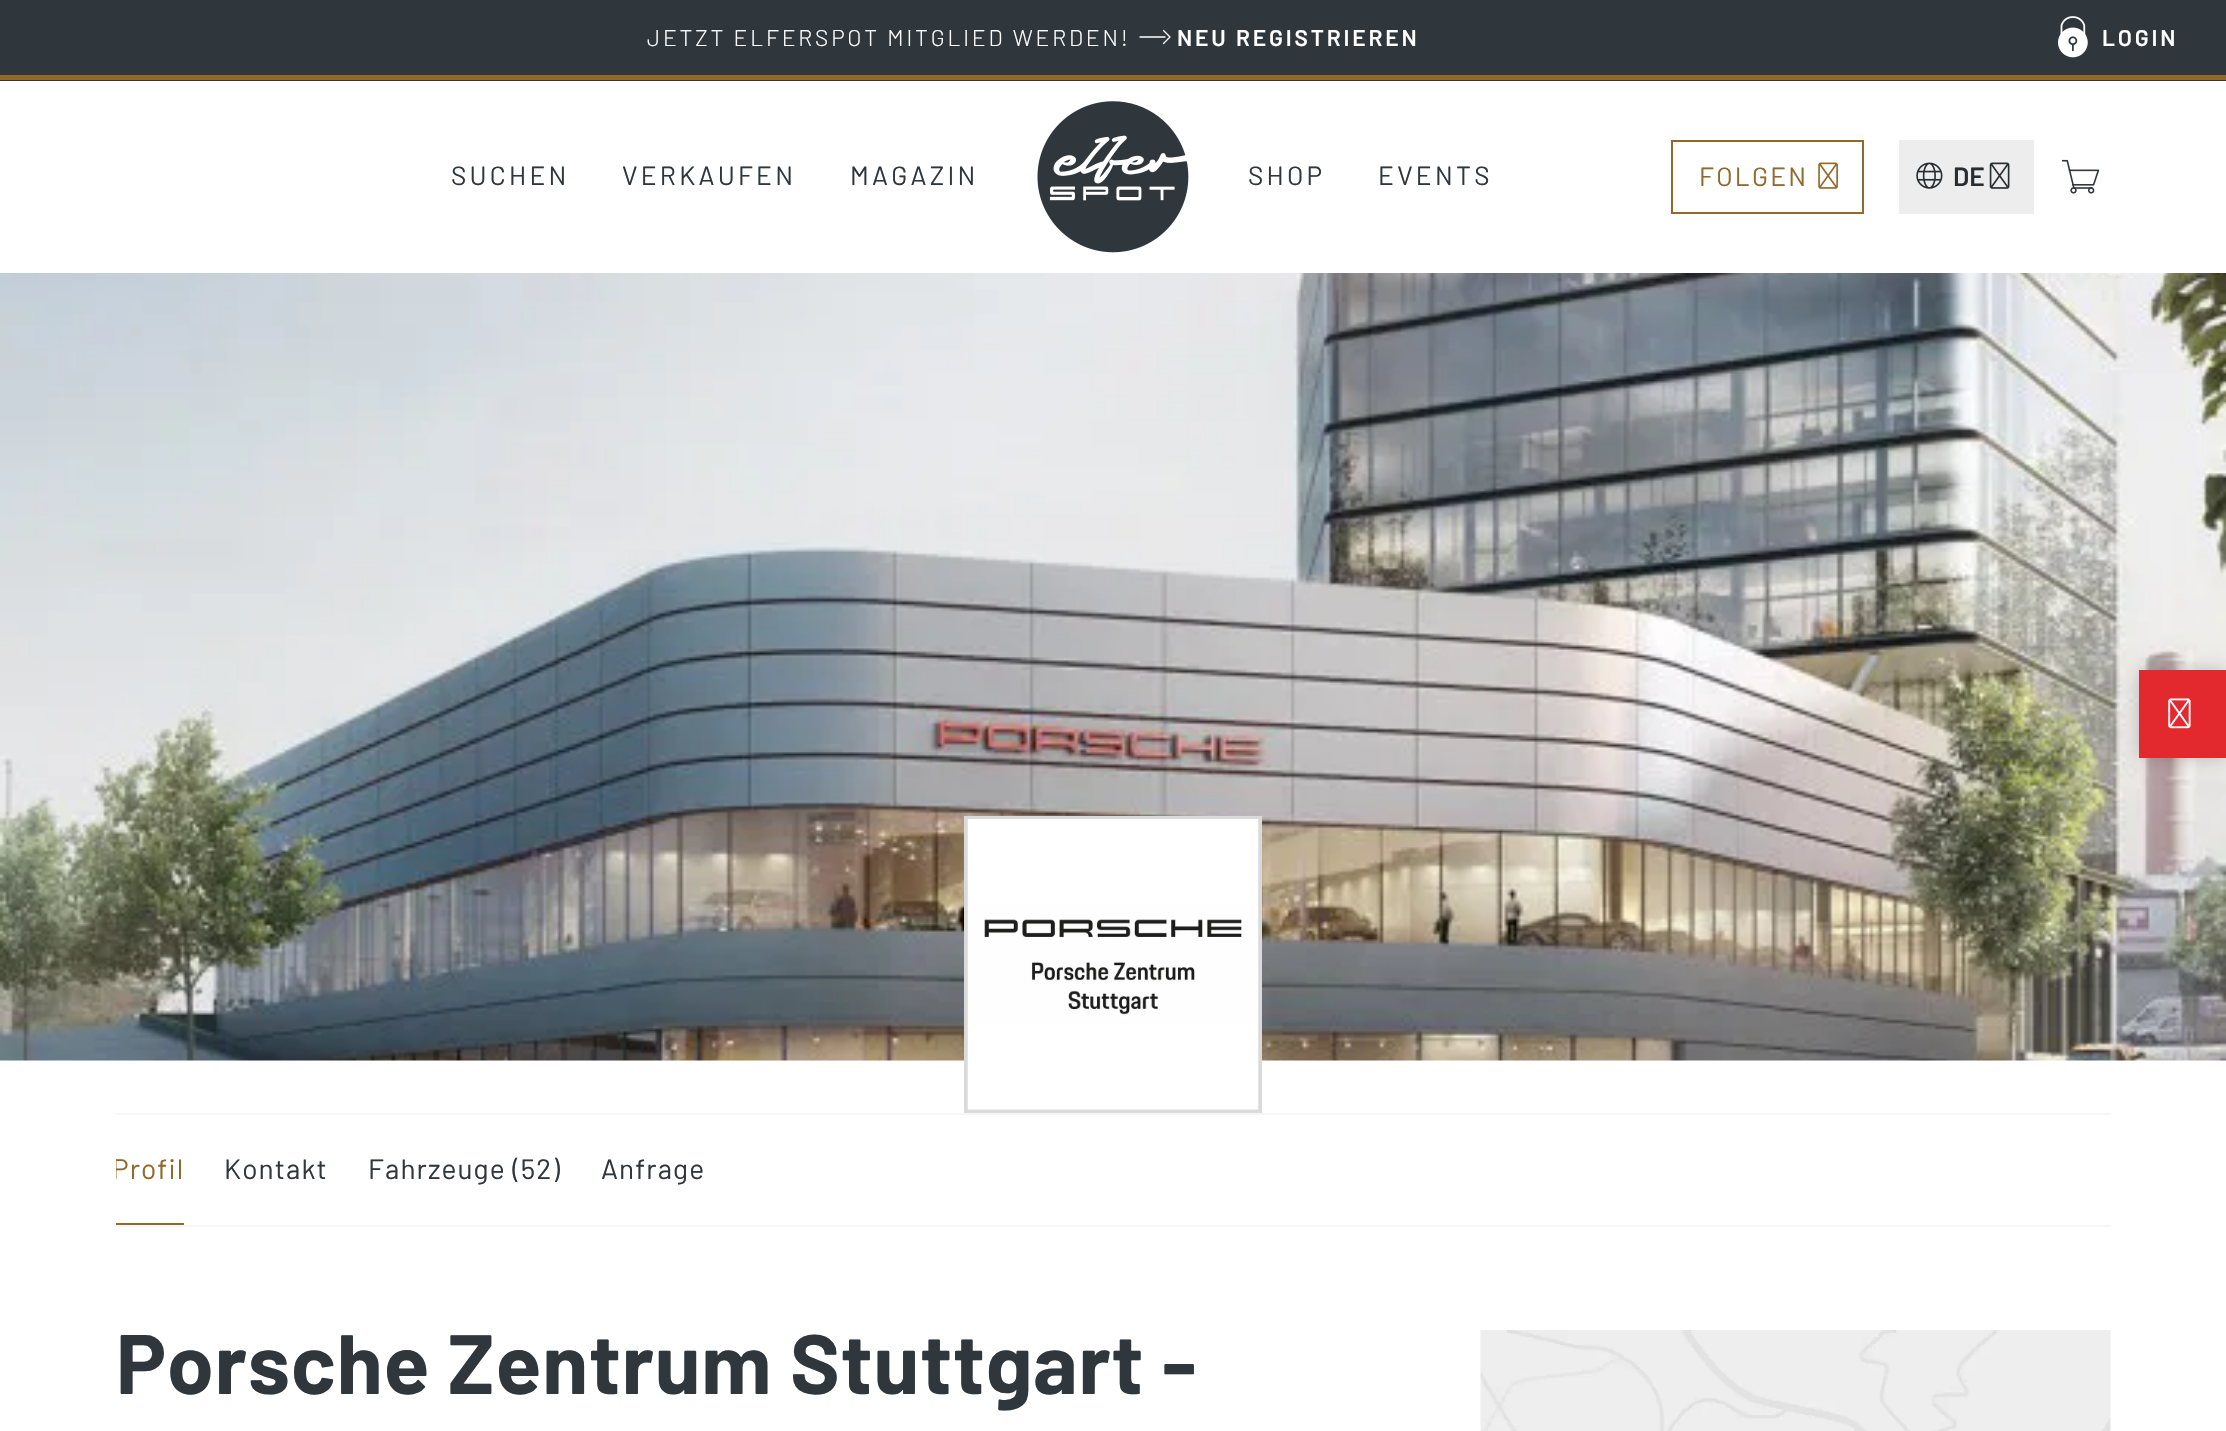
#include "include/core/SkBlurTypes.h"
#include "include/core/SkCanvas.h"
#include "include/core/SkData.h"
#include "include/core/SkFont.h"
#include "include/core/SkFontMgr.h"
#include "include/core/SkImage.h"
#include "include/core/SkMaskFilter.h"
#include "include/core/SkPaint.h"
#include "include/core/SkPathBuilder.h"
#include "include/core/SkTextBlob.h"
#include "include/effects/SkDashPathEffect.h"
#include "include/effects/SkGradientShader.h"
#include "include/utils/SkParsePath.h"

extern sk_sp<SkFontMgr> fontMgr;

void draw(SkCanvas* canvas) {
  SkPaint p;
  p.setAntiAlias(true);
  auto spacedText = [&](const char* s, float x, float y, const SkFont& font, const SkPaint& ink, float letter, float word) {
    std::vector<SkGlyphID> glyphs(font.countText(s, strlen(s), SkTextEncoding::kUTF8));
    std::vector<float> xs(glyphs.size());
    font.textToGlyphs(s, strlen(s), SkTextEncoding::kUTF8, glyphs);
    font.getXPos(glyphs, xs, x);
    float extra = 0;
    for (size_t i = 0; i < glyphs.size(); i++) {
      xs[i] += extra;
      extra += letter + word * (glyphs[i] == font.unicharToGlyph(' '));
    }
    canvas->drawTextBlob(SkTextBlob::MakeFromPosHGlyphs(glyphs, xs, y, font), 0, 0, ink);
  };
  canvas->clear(SK_ColorWHITE);
  p.setColor(SkColorSetRGB(47, 55, 61));
  canvas->drawRect(SkRect::MakeLTRB(0, 0, 2226, 81), p);
  p.setColor(SkColorSetRGB(146, 104, 43));
  canvas->drawRect(SkRect::MakeLTRB(0, 75, 2226, 80), p);
  p.setStyle(SkPaint::kStroke_Style);
  p.setStrokeWidth(1.3f);
  p.setStrokeCap(SkPaint::kRound_Cap);
  p.setStrokeJoin(SkPaint::kRound_Join);
  p.setColor(SK_ColorWHITE);
  canvas->drawPath(SkPathBuilder().moveTo(1163.5f, 30.5f).lineTo(1170, 37).lineTo(1163.5f, 43.5f).moveTo(1165, 37).lineTo(1140, 37).detach(), p);
  canvas->drawImageRect(SkImages::DeferredFromEncodedData(SkData::MakeFromFileName("images/1.png")), SkRect::MakeLTRB(2058, 16, 2088, 58), SkSamplingOptions());
  canvas->drawImageRect(SkImages::DeferredFromEncodedData(SkData::MakeFromFileName("images/2.png")), SkRect::MakeLTRB(1037, 101, 1189, 253), SkSamplingOptions());
  p.setStrokeWidth(2);
  p.setStrokeCap(SkPaint::kButt_Cap);
  p.setStrokeJoin(SkPaint::kMiter_Join);
  p.setColor(SkColorSetRGB(146, 104, 43));
  canvas->drawRect(SkRect::MakeLTRB(1672, 141, 1863, 213), p);
  canvas->drawImageRect(SkImages::DeferredFromEncodedData(SkData::MakeFromFileName("images/3.png")), SkRect::MakeLTRB(1818, 162, 1838, 189), SkSamplingOptions());
  p.setStyle(SkPaint::kFill_Style);
  p.setColor(SkColorSetRGB(237, 237, 237));
  canvas->drawRect(SkRect::MakeLTRB(1899, 140, 2034, 214), p);
  canvas->drawImageRect(SkImages::DeferredFromEncodedData(SkData::MakeFromFileName("images/4.png")), SkRect::MakeLTRB(1916, 162, 1943, 189), SkSamplingOptions());
  canvas->drawImageRect(SkImages::DeferredFromEncodedData(SkData::MakeFromFileName("images/5.png")), SkRect::MakeLTRB(1989, 162, 2010, 189), SkSamplingOptions());
  canvas->drawImageRect(SkImages::DeferredFromEncodedData(SkData::MakeFromFileName("images/6.png")), SkRect::MakeLTRB(2062, 159, 2100, 194), SkSamplingOptions());
  canvas->drawImageRect(SkImages::DeferredFromEncodedData(SkData::MakeFromFileName("images/7.png")), SkRect::MakeLTRB(0, 273, 2226, 1061), SkSamplingOptions());
  p.setStyle(SkPaint::kStroke_Style);
  p.setStrokeWidth(4);
  p.setColor(SkColorSetRGB(218, 218, 218));
  canvas->drawRect(SkRect::MakeLTRB(966, 818, 1260, 1111), p);
  canvas->drawImageRect(SkImages::DeferredFromEncodedData(SkData::MakeFromFileName("images/8.png")), SkRect::MakeLTRB(967, 819, 1259, 1110), SkSamplingOptions());
  p.setStyle(SkPaint::kFill_Style);
  p.setColor(SkColorSetARGB(51, 0, 0, 0));
  p.setMaskFilter(SkMaskFilter::MakeBlur(kNormal_SkBlurStyle, 9));
  canvas->drawRect(SkRect::MakeLTRB(2139, 670, 2226, 758), p);
  p.setMaskFilter(nullptr);
  p.setColor(SkColorSetRGB(227, 41, 45));
  canvas->drawRect(SkRect::MakeLTRB(2139, 670, 2226, 758), p);
  canvas->drawImageRect(SkImages::DeferredFromEncodedData(SkData::MakeFromFileName("images/9.png")), SkRect::MakeLTRB(2168, 698, 2191, 729), SkSamplingOptions());
  p.setColor(SkColorSetRGB(246, 246, 246));
  canvas->drawRect(SkRect::MakeLTRB(116, 1113, 2111, 1115), p);
  canvas->drawRect(SkRect::MakeLTRB(116, 1225, 2111, 1227), p);
  p.setColor(SkColorSetRGB(146, 104, 43));
  canvas->drawRect(SkRect::MakeLTRB(116, 1223, 184, 1225), p);
  canvas->drawImageRect(SkImages::DeferredFromEncodedData(SkData::MakeFromFileName("images/10.png")), SkRect::MakeLTRB(1480, 1330, 2111, 1431), SkSamplingOptions());
  SkFont font1(fontMgr->matchFamilyStyle("Barlow", SkFontStyle(300, SkFontStyle::kNormal_Width, SkFontStyle::kUpright_Slant)), 22.75f);
  font1.setSubpixel(true);
  p.setColor(SK_ColorWHITE);
  spacedText("JETZT ELFERSPOT MITGLIED WERDEN!", 647, 46, font1, p, 2.8f, 0);
  SkFont font2(fontMgr->matchFamilyStyle("Barlow", SkFontStyle(600, SkFontStyle::kNormal_Width, SkFontStyle::kUpright_Slant)), 22.75f);
  font2.setSubpixel(true);
  spacedText("NEU REGISTRIEREN", 1177, 46, font2, p, 2.8f, 0);
  spacedText("LOGIN", 2102, 46, font2, p, 2.8f, 0);
  SkFont font3(fontMgr->matchFamilyStyle("Barlow", SkFontStyle::Normal()), 26.25f);
  font3.setSubpixel(true);
  p.setColor(SkColorSetRGB(47, 55, 61));
  spacedText("SUCHEN", 451, 185, font3, p, 3.25f, 0);
  spacedText("VERKAUFEN", 622, 185, font3, p, 3.25f, 0);
  spacedText("MAGAZIN", 850, 185, font3, p, 3.25f, 0);
  spacedText("SHOP", 1248, 185, font3, p, 3.25f, 0);
  spacedText("EVENTS", 1378, 185, font3, p, 3.25f, 0);
  p.setColor(SkColorSetRGB(146, 104, 43));
  spacedText("FOLGEN", 1699, 186, font3, p, 2.25f, 0);
  SkFont font4(fontMgr->matchFamilyStyle("Barlow", SkFontStyle(600, SkFontStyle::kNormal_Width, SkFontStyle::kUpright_Slant)), 26.25f);
  font4.setSubpixel(true);
  p.setColor(SkColorSetRGB(39, 45, 49));
  canvas->drawString("DE", 1953, 186, font4, p);
  canvas->save();
  canvas->clipRect(SkRect::MakeLTRB(116, 1115, 2111, 1225));
  SkFont font5(fontMgr->matchFamilyStyle("Barlow", SkFontStyle::Normal()), 28);
  font5.setSubpixel(true);
  p.setColor(SkColorSetRGB(146, 104, 43));
  spacedText("Profil", 112, 1179, font5, p, 1.1f, 0);
  canvas->restore();
  p.setColor(SkColorSetRGB(47, 55, 61));
  spacedText("Kontakt", 224, 1179, font5, p, 1.1f, 0);
  spacedText("Fahrzeuge (52)", 368, 1179, font5, p, 1.1f, 0);
  spacedText("Anfrage", 601, 1179, font5, p, 1.1f, 0);
  SkFont font6(fontMgr->matchFamilyStyle("Barlow", SkFontStyle::Bold()), 84);
  font6.setSubpixel(true);
  spacedText("Porsche Zentrum Stuttgart -", 116, 1394, font6, p, 0.85f, 0);
}
